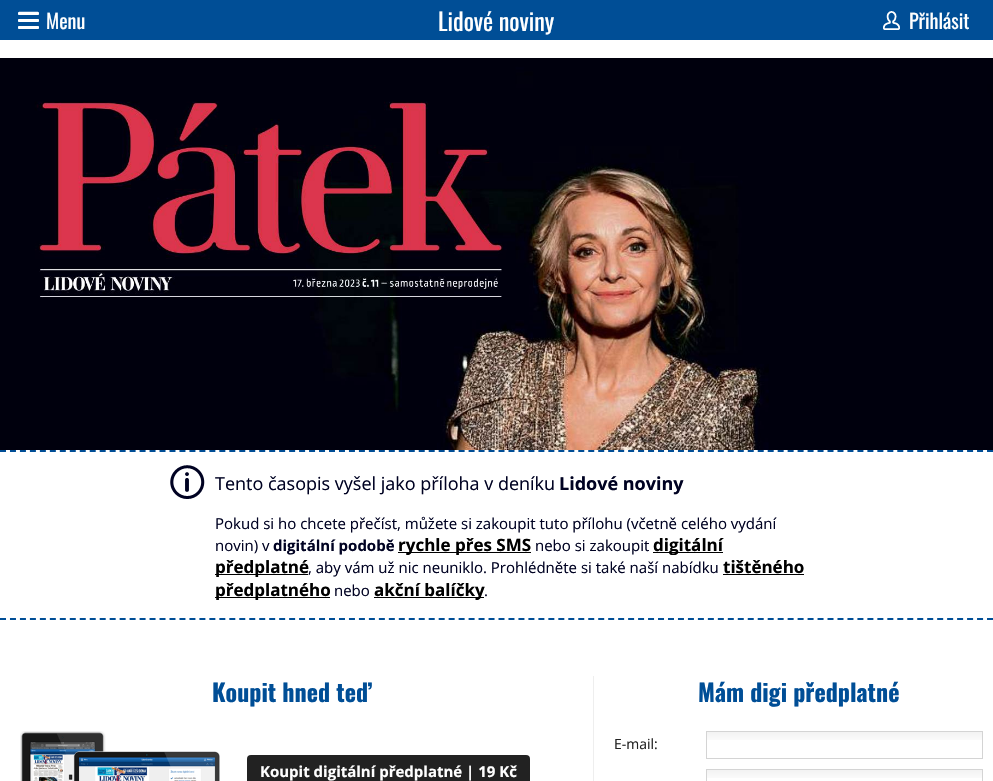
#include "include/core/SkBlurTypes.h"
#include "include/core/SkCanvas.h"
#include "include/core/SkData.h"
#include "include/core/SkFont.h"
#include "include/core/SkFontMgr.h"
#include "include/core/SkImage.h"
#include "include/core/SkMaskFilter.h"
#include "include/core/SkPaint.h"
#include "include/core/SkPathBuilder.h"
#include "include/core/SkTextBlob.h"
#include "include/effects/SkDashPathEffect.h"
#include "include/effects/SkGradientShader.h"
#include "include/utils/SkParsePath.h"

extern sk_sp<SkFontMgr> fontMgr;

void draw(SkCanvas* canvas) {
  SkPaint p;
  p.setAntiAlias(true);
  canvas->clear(SK_ColorWHITE);
  p.setColor(SkColorSetRGB(0, 78, 150));
  canvas->drawRect(SkRect::MakeLTRB(0, 0, 993, 40), p);
  canvas->drawImageRect(SkImages::DeferredFromEncodedData(SkData::MakeFromFileName("images/1.png")), SkRect::MakeLTRB(18, 11, 39, 29), SkSamplingOptions());
  canvas->drawImageRect(SkImages::DeferredFromEncodedData(SkData::MakeFromFileName("images/2.png")), SkRect::MakeLTRB(883, 11, 900, 30), SkSamplingOptions());
  canvas->drawImageRect(SkImages::DeferredFromEncodedData(SkData::MakeFromFileName("images/3.png")), SkRect::MakeLTRB(0, 58, 993, 450), SkSamplingOptions());
  p.setStyle(SkPaint::kStroke_Style);
  p.setStrokeWidth(2);
  p.setPathEffect(SkDashPathEffect::Make({{6, 3.97f}}, 0));
  canvas->drawPath(SkPathBuilder().moveTo(0, 451).lineTo(993, 451).detach(), p);
  p.setPathEffect(nullptr);
  p.setPathEffect(SkDashPathEffect::Make({{6, 3.97f}}, 0));
  canvas->drawPath(SkPathBuilder().moveTo(0, 619).lineTo(993, 619).detach(), p);
  p.setPathEffect(nullptr);
  canvas->drawImageRect(SkImages::DeferredFromEncodedData(SkData::MakeFromFileName("images/4.png")), SkRect::MakeLTRB(170, 465, 205, 499), SkSamplingOptions());
  p.setStyle(SkPaint::kFill_Style);
  p.setColor(SK_ColorBLACK);
  canvas->drawRect(SkRect::MakeLTRB(398, 552, 531, 553), p);
  canvas->drawRect(SkRect::MakeLTRB(653, 552, 723, 553), p);
  canvas->drawRect(SkRect::MakeLTRB(215, 574, 308, 575), p);
  canvas->drawRect(SkRect::MakeLTRB(723, 574, 804, 575), p);
  canvas->drawRect(SkRect::MakeLTRB(215, 597, 330, 598), p);
  canvas->drawRect(SkRect::MakeLTRB(374, 597, 484, 598), p);
  p.setColor(SkColorSetRGB(238, 238, 238));
  canvas->drawRect(SkRect::MakeLTRB(593, 676, 594, 781), p);
  canvas->drawImageRect(SkImages::DeferredFromEncodedData(SkData::MakeFromFileName("images/5.png")), SkRect::MakeLTRB(20, 731, 220, 781), SkSamplingOptions());
  p.setColor(SkColorSetRGB(34, 34, 34));
  canvas->drawRoundRect(SkRect::MakeLTRB(247, 755, 530, 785), 4, 4, p);
  canvas->drawImageRect(SkImages::DeferredFromEncodedData(SkData::MakeFromFileName("images/6.png")), SkRect::MakeLTRB(707, 732, 982, 740), SkSamplingOptions());
  p.setStyle(SkPaint::kStroke_Style);
  p.setStrokeWidth(1);
  p.setColor(SkColorSetRGB(212, 212, 212));
  canvas->drawRect(SkRect::MakeLTRB(706.5f, 731.5f, 982.5f, 758.5f), p);
  canvas->drawImageRect(SkImages::DeferredFromEncodedData(SkData::MakeFromFileName("images/6.png")), SkRect::MakeLTRB(707, 770, 982, 778), SkSamplingOptions());
  canvas->drawRect(SkRect::MakeLTRB(706.5f, 769.5f, 982.5f, 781.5f), p);
  SkFont font1(fontMgr->matchFamilyStyle("Oswald", SkFontStyle::Normal()), 24);
  font1.setSubpixel(true);
  p.setStyle(SkPaint::kFill_Style);
  p.setColor(SK_ColorWHITE);
  canvas->drawString("Lidové noviny", 438, 31, font1, p);
  SkFont font2(fontMgr->matchFamilyStyle("Oswald", SkFontStyle::Normal()), 20);
  font2.setSubpixel(true);
  canvas->drawString("Menu", 46, 29, font2, p);
  canvas->drawString("Přihlásit", 909, 29, font2, p);
  SkFont font3(fontMgr->matchFamilyStyle("Open Sans", SkFontStyle::Normal()), 18);
  font3.setSubpixel(true);
  p.setColor(SkColorSetRGB(0, 2, 34));
  canvas->drawString("Tento časopis vyšel jako příloha v deníku", 215, 490, font3, p);
  SkFont font4(fontMgr->matchFamilyStyle("Open Sans", SkFontStyle::Bold()), 18);
  font4.setSubpixel(true);
  canvas->drawString("Lidové noviny", 559, 490, font4, p);
  SkFont font5(fontMgr->matchFamilyStyle("Open Sans", SkFontStyle::Normal()), 15);
  font5.setSubpixel(true);
  canvas->drawString("Pokud si ho chcete přečíst, můžete si zakoupit tuto přílohu (včetně celého vydání", 215, 529, font5, p);
  canvas->drawString("novin) v", 215, 551, font5, p);
  SkFont font6(fontMgr->matchFamilyStyle("Open Sans", SkFontStyle::Bold()), 15);
  font6.setSubpixel(true);
  canvas->drawString("digitální podobě", 273, 551, font6, p);
  SkFont font7(fontMgr->matchFamilyStyle("Open Sans", SkFontStyle::Bold()), 17);
  font7.setSubpixel(true);
  p.setColor(SK_ColorBLACK);
  canvas->drawString("rychle přes SMS", 398, 551, font7, p);
  p.setColor(SkColorSetRGB(0, 2, 34));
  canvas->drawString("nebo si zakoupit", 535, 551, font5, p);
  p.setColor(SK_ColorBLACK);
  canvas->drawString("digitální", 653, 551, font7, p);
  canvas->drawString("předplatné", 215, 573, font7, p);
  p.setColor(SkColorSetRGB(0, 2, 34));
  canvas->drawString(", aby vám už nic neuniklo. Prohlédněte si také naší nabídku", 308, 573, font5, p);
  p.setColor(SK_ColorBLACK);
  canvas->drawString("tištěného", 723, 573, font7, p);
  canvas->drawString("předplatného", 215, 596, font7, p);
  p.setColor(SkColorSetRGB(0, 2, 34));
  canvas->drawString("nebo", 334, 596, font5, p);
  p.setColor(SK_ColorBLACK);
  canvas->drawString("akční balíčky", 374, 596, font7, p);
  p.setColor(SkColorSetRGB(0, 2, 34));
  canvas->drawString(".", 484, 596, font5, p);
  SkFont font8(fontMgr->matchFamilyStyle("Oswald", SkFontStyle::Bold()), 24);
  font8.setSubpixel(true);
  p.setColor(SkColorSetRGB(0, 78, 150));
  canvas->drawString("Koupit hned teď", 212, 702, font8, p);
  p.setColor(SK_ColorWHITE);
  canvas->drawString("Koupit digitální předplatné | 19 Kč", 260, 777, font6, p);
  p.setColor(SkColorSetRGB(0, 78, 150));
  canvas->drawString("Mám digi předplatné", 698, 702, font8, p);
  SkFont font9(fontMgr->matchFamilyStyle("Open Sans", SkFontStyle::Normal()), 14);
  font9.setSubpixel(true);
  p.setColor(SkColorSetRGB(34, 34, 34));
  canvas->drawString("E-mail:", 614, 749, font9, p);
}
